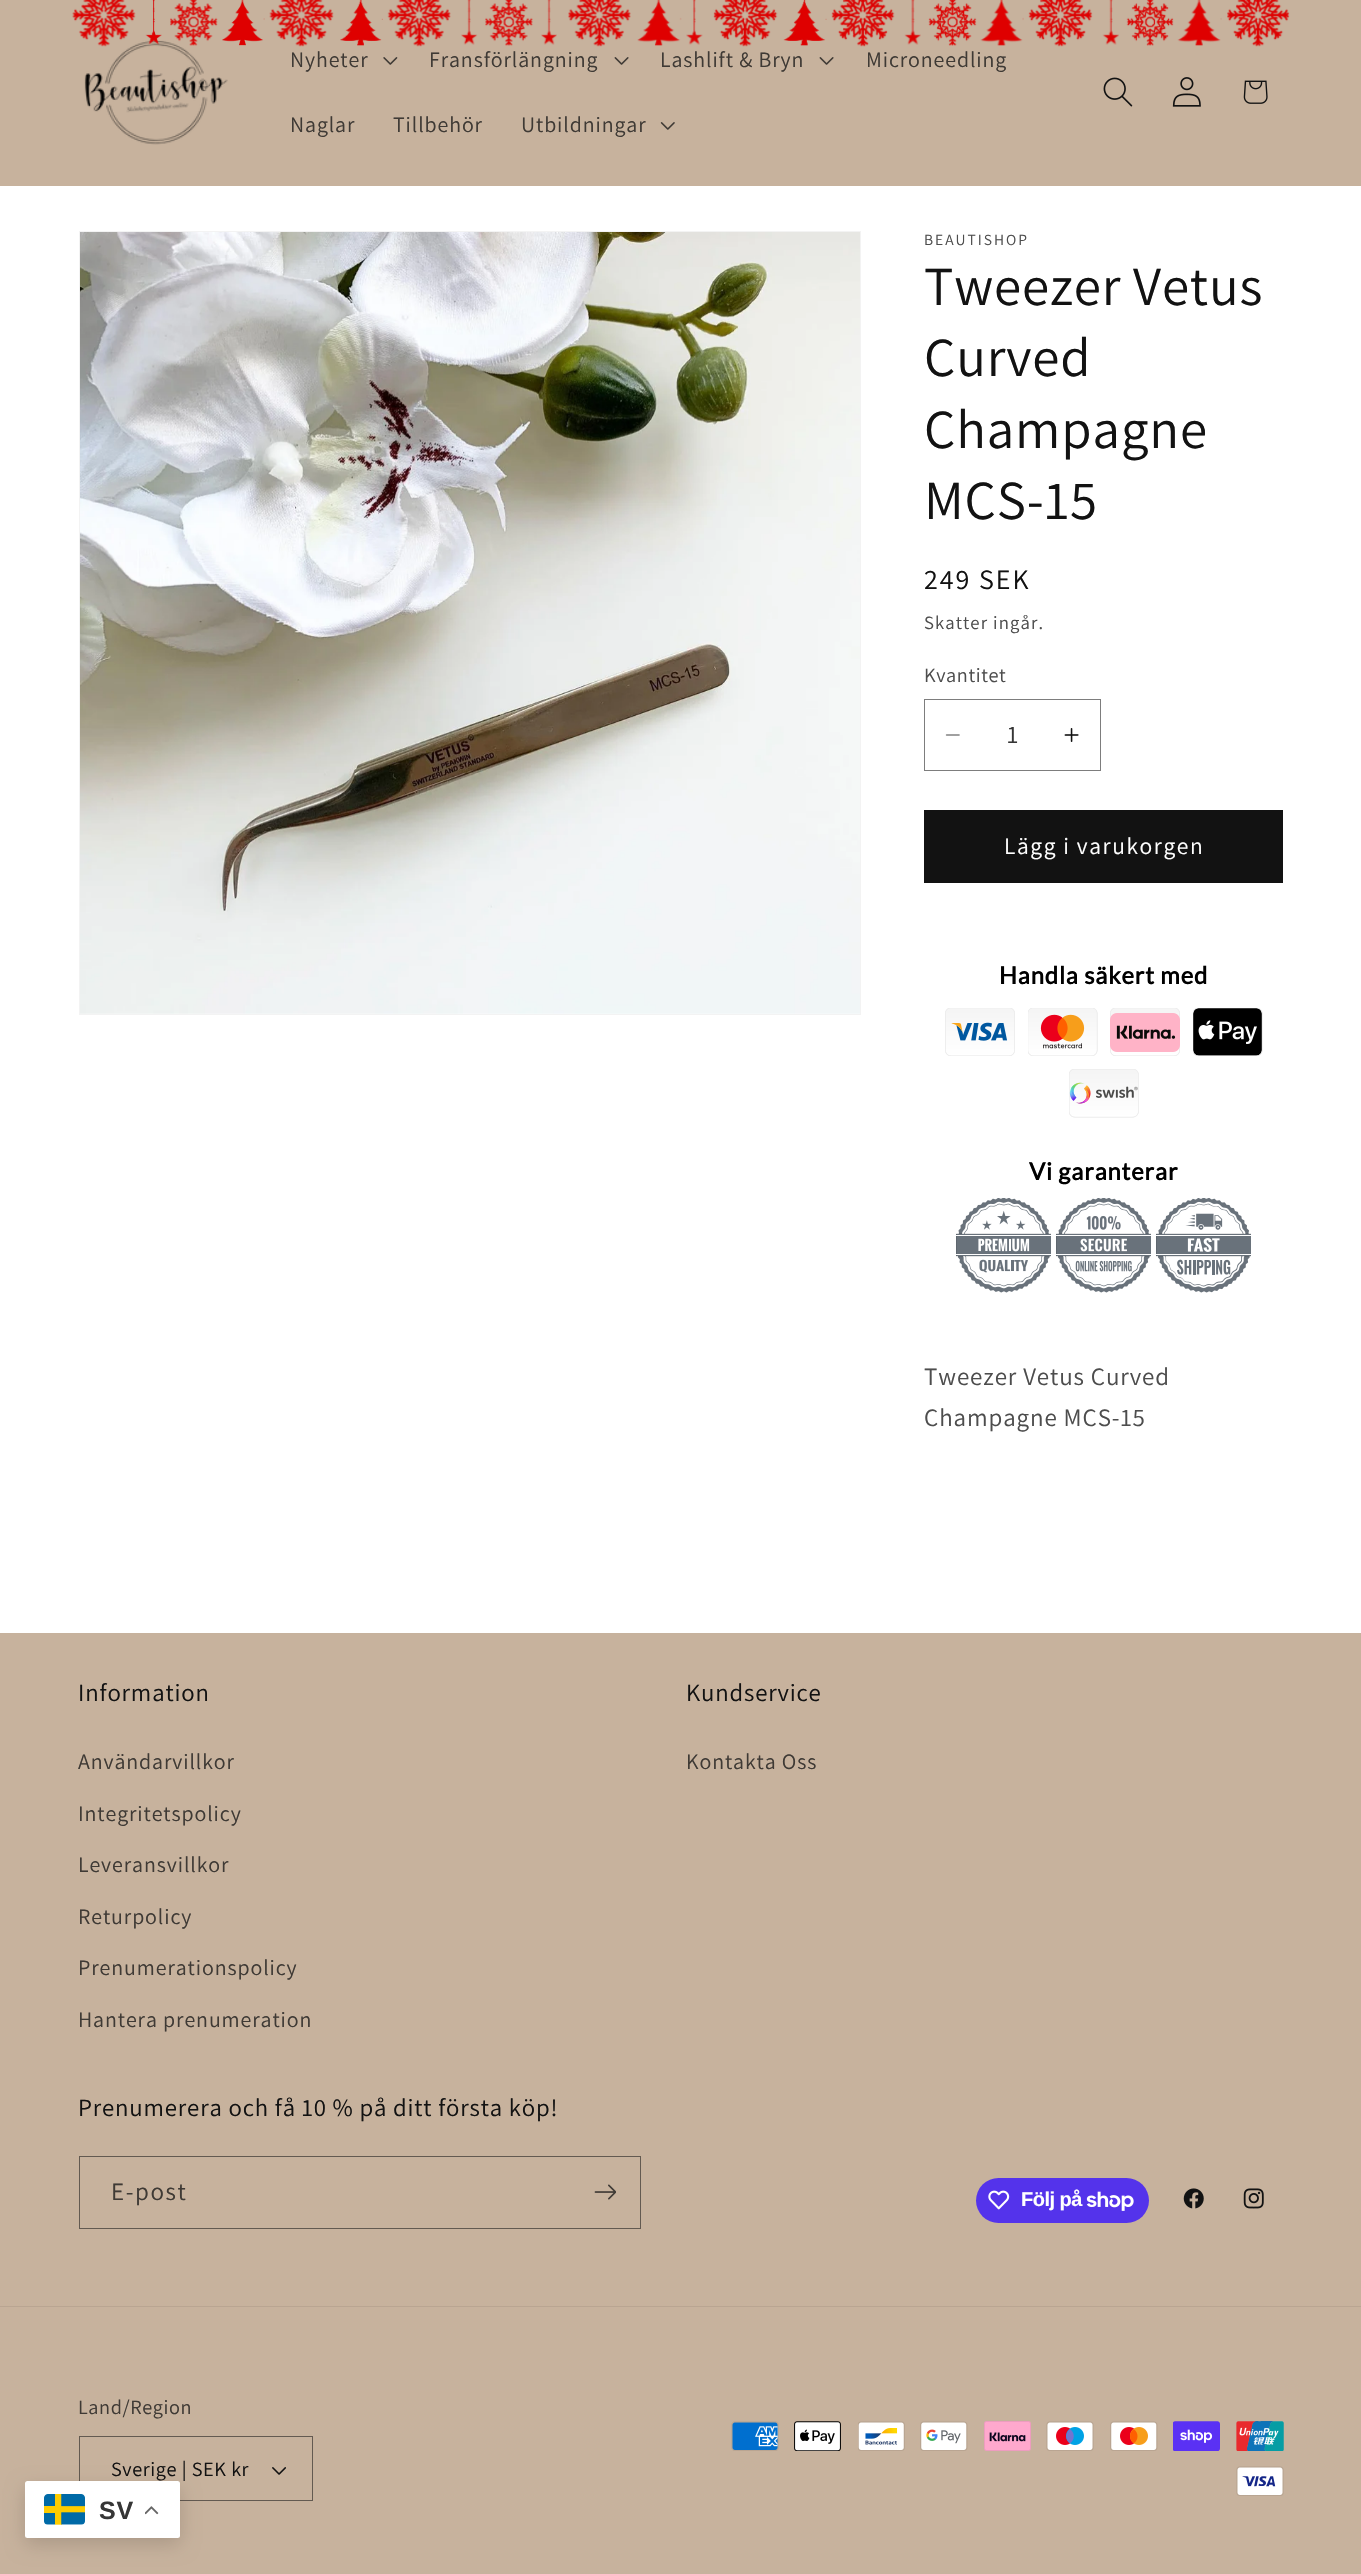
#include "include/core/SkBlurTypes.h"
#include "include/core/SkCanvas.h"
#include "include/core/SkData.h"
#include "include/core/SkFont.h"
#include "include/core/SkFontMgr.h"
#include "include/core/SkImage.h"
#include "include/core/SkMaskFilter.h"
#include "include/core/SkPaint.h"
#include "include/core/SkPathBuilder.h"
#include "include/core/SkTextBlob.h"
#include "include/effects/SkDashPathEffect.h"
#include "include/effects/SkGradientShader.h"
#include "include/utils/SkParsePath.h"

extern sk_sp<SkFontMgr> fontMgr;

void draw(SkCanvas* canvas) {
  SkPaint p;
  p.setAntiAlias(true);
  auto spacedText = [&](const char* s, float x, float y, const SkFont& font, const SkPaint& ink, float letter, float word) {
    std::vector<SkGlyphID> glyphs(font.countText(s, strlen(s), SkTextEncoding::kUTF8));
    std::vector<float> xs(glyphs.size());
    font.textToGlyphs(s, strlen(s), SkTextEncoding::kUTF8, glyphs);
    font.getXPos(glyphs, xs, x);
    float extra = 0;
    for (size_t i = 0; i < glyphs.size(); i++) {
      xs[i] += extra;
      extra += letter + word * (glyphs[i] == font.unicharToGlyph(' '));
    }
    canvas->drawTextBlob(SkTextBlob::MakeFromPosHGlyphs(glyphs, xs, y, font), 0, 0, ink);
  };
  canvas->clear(SK_ColorWHITE);
  p.setColor(SkColorSetRGB(199, 178, 157));
  canvas->drawRect(SkRect::MakeLTRB(0, 0, 1361, 186), p);
  canvas->drawImageRect(SkImages::DeferredFromEncodedData(SkData::MakeFromFileName("images/25.png")), SkRect::MakeLTRB(84, 40, 228, 145), SkSamplingOptions());
  canvas->drawImageRect(SkImages::DeferredFromEncodedData(SkData::MakeFromFileName("images/1.png")), SkRect::MakeLTRB(72, 0, 136, 47), SkSamplingOptions());
  canvas->drawImageRect(SkImages::DeferredFromEncodedData(SkData::MakeFromFileName("images/2.png")), SkRect::MakeLTRB(145, 0, 162, 45), SkSamplingOptions());
  canvas->drawImageRect(SkImages::DeferredFromEncodedData(SkData::MakeFromFileName("images/3.png")), SkRect::MakeLTRB(170, 0, 218, 46), SkSamplingOptions());
  canvas->drawImageRect(SkImages::DeferredFromEncodedData(SkData::MakeFromFileName("images/4.png")), SkRect::MakeLTRB(222, 0, 265, 46), SkSamplingOptions());
  canvas->drawImageRect(SkImages::DeferredFromEncodedData(SkData::MakeFromFileName("images/5.png")), SkRect::MakeLTRB(269, 0, 334, 47), SkSamplingOptions());
  canvas->drawImageRect(SkImages::DeferredFromEncodedData(SkData::MakeFromFileName("images/6.png")), SkRect::MakeLTRB(340, 0, 383, 46), SkSamplingOptions());
  canvas->drawImageRect(SkImages::DeferredFromEncodedData(SkData::MakeFromFileName("images/7.png")), SkRect::MakeLTRB(387, 0, 451, 47), SkSamplingOptions());
  canvas->drawImageRect(SkImages::DeferredFromEncodedData(SkData::MakeFromFileName("images/8.png")), SkRect::MakeLTRB(461, 0, 478, 45), SkSamplingOptions());
  canvas->drawImageRect(SkImages::DeferredFromEncodedData(SkData::MakeFromFileName("images/9.png")), SkRect::MakeLTRB(485, 0, 533, 46), SkSamplingOptions());
  canvas->drawImageRect(SkImages::DeferredFromEncodedData(SkData::MakeFromFileName("images/10.png")), SkRect::MakeLTRB(541, 0, 557, 45), SkSamplingOptions());
  canvas->drawImageRect(SkImages::DeferredFromEncodedData(SkData::MakeFromFileName("images/11.png")), SkRect::MakeLTRB(568, 0, 631, 47), SkSamplingOptions());
  canvas->drawImageRect(SkImages::DeferredFromEncodedData(SkData::MakeFromFileName("images/12.png")), SkRect::MakeLTRB(637, 0, 682, 46), SkSamplingOptions());
  canvas->drawImageRect(SkImages::DeferredFromEncodedData(SkData::MakeFromFileName("images/13.png")), SkRect::MakeLTRB(686, 0, 703, 45), SkSamplingOptions());
  canvas->drawImageRect(SkImages::DeferredFromEncodedData(SkData::MakeFromFileName("images/14.png")), SkRect::MakeLTRB(713, 0, 778, 47), SkSamplingOptions());
  canvas->drawImageRect(SkImages::DeferredFromEncodedData(SkData::MakeFromFileName("images/15.png")), SkRect::MakeLTRB(783, 0, 827, 46), SkSamplingOptions());
  canvas->drawImageRect(SkImages::DeferredFromEncodedData(SkData::MakeFromFileName("images/16.png")), SkRect::MakeLTRB(831, 0, 895, 47), SkSamplingOptions());
  canvas->drawImageRect(SkImages::DeferredFromEncodedData(SkData::MakeFromFileName("images/17.png")), SkRect::MakeLTRB(904, 0, 921, 45), SkSamplingOptions());
  canvas->drawImageRect(SkImages::DeferredFromEncodedData(SkData::MakeFromFileName("images/18.png")), SkRect::MakeLTRB(928, 0, 977, 46), SkSamplingOptions());
  canvas->drawImageRect(SkImages::DeferredFromEncodedData(SkData::MakeFromFileName("images/19.png")), SkRect::MakeLTRB(980, 0, 1024, 46), SkSamplingOptions());
  canvas->drawImageRect(SkImages::DeferredFromEncodedData(SkData::MakeFromFileName("images/20.png")), SkRect::MakeLTRB(1028, 0, 1093, 47), SkSamplingOptions());
  canvas->drawImageRect(SkImages::DeferredFromEncodedData(SkData::MakeFromFileName("images/21.png")), SkRect::MakeLTRB(1102, 0, 1119, 45), SkSamplingOptions());
  canvas->drawImageRect(SkImages::DeferredFromEncodedData(SkData::MakeFromFileName("images/22.png")), SkRect::MakeLTRB(1126, 0, 1174, 46), SkSamplingOptions());
  canvas->drawImageRect(SkImages::DeferredFromEncodedData(SkData::MakeFromFileName("images/23.png")), SkRect::MakeLTRB(1177, 0, 1222, 46), SkSamplingOptions());
  canvas->drawImageRect(SkImages::DeferredFromEncodedData(SkData::MakeFromFileName("images/24.png")), SkRect::MakeLTRB(1227, 0, 1290, 47), SkSamplingOptions());
  canvas->drawImageRect(SkImages::DeferredFromEncodedData(SkData::MakeFromFileName("images/26.png")), SkRect::MakeLTRB(383, 57, 398, 65), SkSamplingOptions());
  canvas->drawImageRect(SkImages::DeferredFromEncodedData(SkData::MakeFromFileName("images/27.png")), SkRect::MakeLTRB(614, 57, 629, 65), SkSamplingOptions());
  canvas->drawImageRect(SkImages::DeferredFromEncodedData(SkData::MakeFromFileName("images/27.png")), SkRect::MakeLTRB(819, 57, 834, 65), SkSamplingOptions());
  canvas->drawImageRect(SkImages::DeferredFromEncodedData(SkData::MakeFromFileName("images/28.png")), SkRect::MakeLTRB(660, 122, 675, 130), SkSamplingOptions());
  canvas->drawImageRect(SkImages::DeferredFromEncodedData(SkData::MakeFromFileName("images/29.png")), SkRect::MakeLTRB(1103, 77, 1133, 107), SkSamplingOptions());
  canvas->drawImageRect(SkImages::DeferredFromEncodedData(SkData::MakeFromFileName("images/30.png")), SkRect::MakeLTRB(1172, 77, 1201, 107), SkSamplingOptions());
  canvas->drawImageRect(SkImages::DeferredFromEncodedData(SkData::MakeFromFileName("images/31.png")), SkRect::MakeLTRB(1243, 80, 1268, 104), SkSamplingOptions());
  p.setStyle(SkPaint::kStroke_Style);
  p.setStrokeWidth(1);
  p.setColor(SkColorSetRGB(243, 243, 243));
  canvas->drawRect(SkRect::MakeLTRB(79.5f, 231.5f, 860.5f, 1014.5f), p);
  canvas->drawImageRect(SkImages::DeferredFromEncodedData(SkData::MakeFromFileName("images/32.png")), SkRect::MakeLTRB(80, 232, 860, 1014), SkSamplingOptions());
  canvas->drawImageRect(SkImages::DeferredFromEncodedData(SkData::MakeFromFileName("images/33.png")), SkRect::MakeLTRB(945, 734, 960, 736), SkSamplingOptions());
  canvas->drawImageRect(SkImages::DeferredFromEncodedData(SkData::MakeFromFileName("images/34.png")), SkRect::MakeLTRB(1064, 728, 1079, 742), SkSamplingOptions());
  p.setColor(SkColorSetRGB(125, 125, 125));
  canvas->drawRect(SkRect::MakeLTRB(924.5f, 699.5f, 1100.5f, 770.5f), p);
  p.setStyle(SkPaint::kFill_Style);
  p.setColor(SkColorSetRGB(18, 18, 18));
  canvas->drawRect(SkRect::MakeLTRB(924, 810, 1283, 883), p);
  canvas->drawImageRect(SkImages::DeferredFromEncodedData(SkData::MakeFromFileName("images/35.png")), SkRect::MakeLTRB(945, 1008, 1015, 1056), SkSamplingOptions());
  canvas->drawImageRect(SkImages::DeferredFromEncodedData(SkData::MakeFromFileName("images/36.png")), SkRect::MakeLTRB(1028, 1008, 1098, 1056), SkSamplingOptions());
  canvas->drawImageRect(SkImages::DeferredFromEncodedData(SkData::MakeFromFileName("images/37.png")), SkRect::MakeLTRB(1110, 1008, 1180, 1056), SkSamplingOptions());
  canvas->drawImageRect(SkImages::DeferredFromEncodedData(SkData::MakeFromFileName("images/38.png")), SkRect::MakeLTRB(1193, 1008, 1263, 1056), SkSamplingOptions());
  canvas->drawImageRect(SkImages::DeferredFromEncodedData(SkData::MakeFromFileName("images/39.png")), SkRect::MakeLTRB(1069, 1069, 1139, 1118), SkSamplingOptions());
  canvas->drawImageRect(SkImages::DeferredFromEncodedData(SkData::MakeFromFileName("images/40.png")), SkRect::MakeLTRB(956, 1198, 1051, 1293), SkSamplingOptions());
  canvas->drawImageRect(SkImages::DeferredFromEncodedData(SkData::MakeFromFileName("images/41.png")), SkRect::MakeLTRB(1056, 1198, 1151, 1293), SkSamplingOptions());
  canvas->drawImageRect(SkImages::DeferredFromEncodedData(SkData::MakeFromFileName("images/42.png")), SkRect::MakeLTRB(1156, 1198, 1251, 1293), SkSamplingOptions());
  p.setColor(SkColorSetRGB(199, 178, 157));
  canvas->drawRect(SkRect::MakeLTRB(0, 1633, 1361, 2574), p);
  p.setStyle(SkPaint::kStroke_Style);
  p.setColor(SkColorSetRGB(99, 90, 81));
  canvas->drawRect(SkRect::MakeLTRB(79.5f, 2156.5f, 640.5f, 2228.5f), p);
  canvas->drawImageRect(SkImages::DeferredFromEncodedData(SkData::MakeFromFileName("images/43.png")), SkRect::MakeLTRB(594, 2184, 616, 2200), SkSamplingOptions());
  p.setStyle(SkPaint::kFill_Style);
  p.setColor(SkColorSetRGB(84, 51, 235));
  canvas->drawRoundRect(SkRect::MakeLTRB(976, 2178, 1149, 2223), 22.5f, 22.5f, p);
  canvas->drawImageRect(SkImages::DeferredFromEncodedData(SkData::MakeFromFileName("images/44.png")), SkRect::MakeLTRB(988, 2190, 1010, 2210), SkSamplingOptions());
  canvas->drawImageRect(SkImages::DeferredFromEncodedData(SkData::MakeFromFileName("images/45.png")), SkRect::MakeLTRB(1086, 2191, 1134, 2211), SkSamplingOptions());
  canvas->drawImageRect(SkImages::DeferredFromEncodedData(SkData::MakeFromFileName("images/46.png")), SkRect::MakeLTRB(1183, 2188, 1204, 2209), SkSamplingOptions());
  canvas->drawImageRect(SkImages::DeferredFromEncodedData(SkData::MakeFromFileName("images/47.png")), SkRect::MakeLTRB(1243, 2188, 1264, 2209), SkSamplingOptions());
  p.setColor(SkColorSetRGB(185, 165, 146));
  canvas->drawRect(SkRect::MakeLTRB(0, 2306, 1361, 2307), p);
  canvas->drawImageRect(SkImages::DeferredFromEncodedData(SkData::MakeFromFileName("images/48.png")), SkRect::MakeLTRB(272, 2467, 286, 2475), SkSamplingOptions());
  p.setStyle(SkPaint::kStroke_Style);
  p.setColor(SkColorSetRGB(99, 90, 81));
  canvas->drawRect(SkRect::MakeLTRB(79.5f, 2436.5f, 312.5f, 2500.5f), p);
  canvas->drawImageRect(SkImages::DeferredFromEncodedData(SkData::MakeFromFileName("images/49.png")), SkRect::MakeLTRB(731, 2421, 779, 2451), SkSamplingOptions());
  canvas->drawImageRect(SkImages::DeferredFromEncodedData(SkData::MakeFromFileName("images/50.png")), SkRect::MakeLTRB(794, 2421, 841, 2451), SkSamplingOptions());
  canvas->drawImageRect(SkImages::DeferredFromEncodedData(SkData::MakeFromFileName("images/51.png")), SkRect::MakeLTRB(858, 2421, 905, 2451), SkSamplingOptions());
  canvas->drawImageRect(SkImages::DeferredFromEncodedData(SkData::MakeFromFileName("images/52.png")), SkRect::MakeLTRB(920, 2421, 968, 2451), SkSamplingOptions());
  canvas->drawImageRect(SkImages::DeferredFromEncodedData(SkData::MakeFromFileName("images/53.png")), SkRect::MakeLTRB(984, 2421, 1031, 2451), SkSamplingOptions());
  canvas->drawImageRect(SkImages::DeferredFromEncodedData(SkData::MakeFromFileName("images/54.png")), SkRect::MakeLTRB(1046, 2421, 1094, 2451), SkSamplingOptions());
  canvas->drawImageRect(SkImages::DeferredFromEncodedData(SkData::MakeFromFileName("images/55.png")), SkRect::MakeLTRB(1110, 2421, 1158, 2451), SkSamplingOptions());
  canvas->drawImageRect(SkImages::DeferredFromEncodedData(SkData::MakeFromFileName("images/56.png")), SkRect::MakeLTRB(1173, 2421, 1220, 2451), SkSamplingOptions());
  canvas->drawImageRect(SkImages::DeferredFromEncodedData(SkData::MakeFromFileName("images/57.png")), SkRect::MakeLTRB(1236, 2421, 1284, 2451), SkSamplingOptions());
  canvas->drawImageRect(SkImages::DeferredFromEncodedData(SkData::MakeFromFileName("images/58.png")), SkRect::MakeLTRB(1236, 2466, 1284, 2496), SkSamplingOptions());
  p.setStyle(SkPaint::kFill_Style);
  p.setColor(SkColorSetARGB(38, 0, 0, 0));
  p.setMaskFilter(SkMaskFilter::MakeBlur(kNormal_SkBlurStyle, 9.5f));
  canvas->drawRoundRect(SkRect::MakeLTRB(25, 2488, 180, 2544), 2.5f, 2.5f, p);
  p.setMaskFilter(nullptr);
  SkFont font1(fontMgr->matchFamilyStyle("Assistant", SkFontStyle::Normal()), 21.9f);
  font1.setSubpixel(true);
  p.setColor(SkColorSetRGB(63, 58, 53));
  spacedText("Nyheter", 290, 67, font1, p, 0.9f, 0);
  spacedText("Fransförlängning", 429, 67, font1, p, 0.9f, 0);
  spacedText("Lashlift & Bryn", 660, 67, font1, p, 0.9f, 0);
  spacedText("Microneedling", 866, 67, font1, p, 0.9f, 0);
  spacedText("Naglar", 290, 132, font1, p, 0.9f, 0);
  spacedText("Tillbehör", 393, 132, font1, p, 0.9f, 0);
  spacedText("Utbildningar", 521, 132, font1, p, 0.9f, 0);
  SkFont font2(fontMgr->matchFamilyStyle("Assistant", SkFontStyle::Normal()), 15.5f);
  font2.setSubpixel(true);
  p.setColor(SkColorSetRGB(77, 77, 77));
  spacedText("BEAUTISHOP", 924, 245, font2, p, 2, 0);
  SkFont font3(fontMgr->matchFamilyStyle("Assistant", SkFontStyle::Normal()), 55);
  font3.setSubpixel(true);
  p.setColor(SkColorSetRGB(18, 18, 18));
  spacedText("Tweezer Vetus", 924, 305, font3, p, 0.85f, 0);
  spacedText("Curved", 924, 376, font3, p, 0.85f, 0);
  spacedText("Champagne", 924, 448, font3, p, 0.85f, 0);
  spacedText("MCS-15", 924, 519, font3, p, 0.85f, 0);
  SkFont font4(fontMgr->matchFamilyStyle("Assistant", SkFontStyle::Normal()), 28);
  font4.setSubpixel(true);
  spacedText("249 SEK", 924, 589, font4, p, 2, 0);
  SkFont font5(fontMgr->matchFamilyStyle("Assistant", SkFontStyle::Normal()), 18.75f);
  font5.setSubpixel(true);
  p.setColor(SkColorSetRGB(77, 77, 77));
  spacedText("Skatter ingår.", 924, 629, font5, p, 1.1f, 0);
  SkFont font6(fontMgr->matchFamilyStyle("Assistant", SkFontStyle::Normal()), 20.25f);
  font6.setSubpixel(true);
  spacedText("Kvantitet", 924, 682, font6, p, 0.6f, 0);
  SkFont font7(fontMgr->matchFamilyStyle("Assistant", SkFontStyle::Normal()), 25);
  font7.setSubpixel(true);
  p.setColor(SkColorSetRGB(54, 54, 54));
  canvas->drawString("1", 1007, 743, font7, p);
  SkFont font8(fontMgr->matchFamilyStyle("Assistant", SkFontStyle::Normal()), 23.5f);
  font8.setSubpixel(true);
  p.setColor(SK_ColorWHITE);
  spacedText("Lägg i varukorgen", 1004, 854, font8, p, 1.6f, 0);
  SkFont font9(fontMgr->matchFamilyStyle("Lato", SkFontStyle::Bold()), 23.75f);
  font9.setSubpixel(true);
  p.setColor(SK_ColorBLACK);
  spacedText("Handla säkert med", 999, 984, font9, p, 0.85f, 0);
  spacedText("Vi garanterar", 1029, 1180, font9, p, 0.85f, 0);
  p.setColor(SkColorSetRGB(77, 77, 77));
  spacedText("Tweezer Vetus Curved", 924, 1385, font7, p, 0.9f, 0);
  spacedText("Champagne MCS-15", 924, 1426, font7, p, 0.9f, 0);
  SkFont font10(fontMgr->matchFamilyStyle("Assistant", SkFontStyle::Normal()), 24.75f);
  font10.setSubpixel(true);
  p.setColor(SkColorSetRGB(18, 18, 18));
  spacedText("Information", 78, 1701, font10, p, 0.85f, 0);
  p.setColor(SkColorSetRGB(63, 58, 53));
  spacedText("Användarvillkor", 78, 1769, font1, p, 0.9f, 0);
  spacedText("Integritetspolicy", 78, 1821, font1, p, 0.9f, 0);
  spacedText("Leveransvillkor", 78, 1872, font1, p, 0.9f, 0);
  spacedText("Returpolicy", 78, 1924, font1, p, 0.9f, 0);
  spacedText("Prenumerationspolicy", 78, 1975, font1, p, 0.9f, 0);
  spacedText("Hantera prenumeration", 78, 2027, font1, p, 0.9f, 0);
  p.setColor(SkColorSetRGB(18, 18, 18));
  spacedText("Kundservice", 686, 1701, font10, p, 0.85f, 0);
  p.setColor(SkColorSetRGB(63, 58, 53));
  spacedText("Kontakta Oss", 686, 1769, font1, p, 0.9f, 0);
  p.setColor(SkColorSetRGB(18, 18, 18));
  spacedText("Prenumerera och få 10 % på ditt första köp!", 78, 2116, font10, p, 0.85f, 0);
  p.setColor(SkColorSetRGB(63, 58, 53));
  spacedText("E-post", 111, 2200, font7, p, 1.6f, 0);
  SkFont font11(fontMgr->matchFamilyStyle("Liberation Sans", SkFontStyle::Bold()), 20);
  font11.setSubpixel(true);
  p.setColor(SK_ColorWHITE);
  spacedText("Följ på", 1021, 2206, font11, p, -0.5f, 0);
  p.setColor(SkColorSetRGB(63, 58, 53));
  spacedText("Land/Region", 78, 2414, font6, p, 0.6f, 0);
  p.setColor(SkColorSetRGB(18, 18, 18));
  spacedText("Sverige | SEK kr", 111, 2476, font6, p, 0.6f, 0);
  p.setColor(SK_ColorWHITE);
  canvas->drawRoundRect(SkRect::MakeLTRB(25, 2481, 180, 2538), 2.5f, 2.5f, p);
  canvas->drawImageRect(SkImages::DeferredFromEncodedData(SkData::MakeFromFileName("images/59.png")), SkRect::MakeLTRB(44, 2494, 85, 2525), SkSamplingOptions());
  SkFont font12(fontMgr->matchFamilyStyle("Liberation Sans", SkFontStyle::Bold()), 25);
  font12.setSubpixel(true);
  p.setColor(SkColorSetRGB(54, 54, 54));
  spacedText("SV", 99, 2519, font12, p, 0.9f, 0);
  canvas->drawImageRect(SkImages::DeferredFromEncodedData(SkData::MakeFromFileName("images/60.png")), SkRect::MakeLTRB(145, 2506, 159, 2515), SkSamplingOptions());
}
